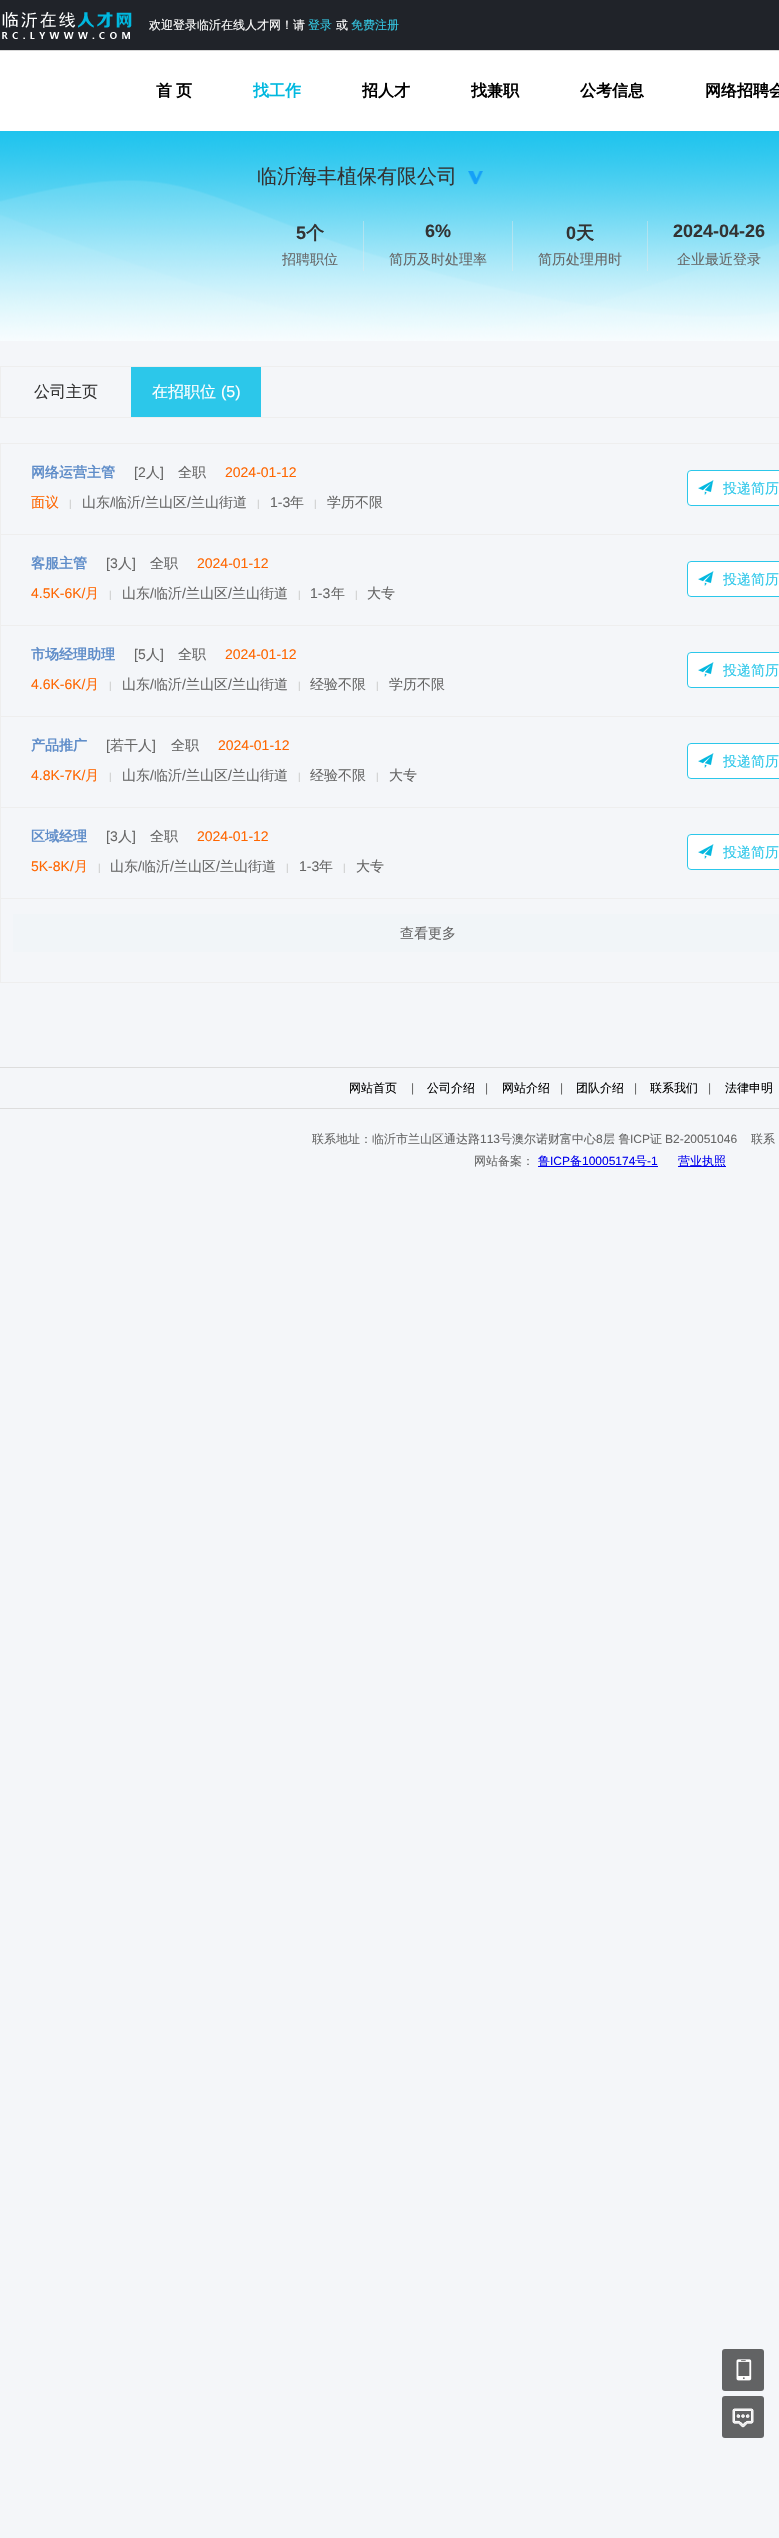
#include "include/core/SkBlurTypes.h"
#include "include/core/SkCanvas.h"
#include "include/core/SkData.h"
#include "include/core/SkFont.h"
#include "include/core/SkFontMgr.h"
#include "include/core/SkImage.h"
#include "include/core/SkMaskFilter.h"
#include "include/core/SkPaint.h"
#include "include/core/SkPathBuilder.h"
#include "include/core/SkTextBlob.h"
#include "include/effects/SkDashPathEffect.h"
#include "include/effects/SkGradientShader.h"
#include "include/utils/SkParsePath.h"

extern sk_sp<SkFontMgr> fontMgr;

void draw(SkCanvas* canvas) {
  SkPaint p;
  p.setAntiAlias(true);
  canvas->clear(SkColorSetRGB(244, 246, 249));
  p.setColor(SkColorSetRGB(32, 35, 41));
  canvas->drawRect(SkRect::MakeLTRB(0, 0, 779, 50), p);
  canvas->drawImageRect(SkImages::DeferredFromEncodedData(SkData::MakeFromFileName("images/1.png")), SkRect::MakeLTRB(2, 11, 132, 39), SkSamplingOptions());
  p.setColor(SK_ColorWHITE);
  canvas->drawRect(SkRect::MakeLTRB(0, 51, 779, 131), p);
  p.setColor(SkColorSetRGB(216, 216, 216));
  canvas->drawRect(SkRect::MakeLTRB(0, 50, 779, 51), p);
  canvas->drawImageRect(SkImages::DeferredFromEncodedData(SkData::MakeFromFileName("images/2.png")), SkRect::MakeLTRB(0, 131, 779, 341), SkSamplingOptions());
  canvas->drawImageRect(SkImages::DeferredFromEncodedData(SkData::MakeFromFileName("images/3.png")), SkRect::MakeLTRB(468, 171, 483, 185), SkSamplingOptions());
  p.setColor(SkColorSetARGB(110, 232, 232, 232));
  canvas->drawRect(SkRect::MakeLTRB(363, 221, 364, 271), p);
  canvas->drawRect(SkRect::MakeLTRB(512, 221, 513, 271), p);
  canvas->drawRect(SkRect::MakeLTRB(647, 221, 648, 271), p);
  p.setStyle(SkPaint::kStroke_Style);
  p.setStrokeWidth(1);
  p.setColor(SkColorSetRGB(238, 238, 238));
  canvas->drawRect(SkRect::MakeLTRB(0.5f, 366.5f, 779.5f, 417.5f), p);
  p.setStyle(SkPaint::kFill_Style);
  p.setColor(SkColorSetRGB(44, 199, 234));
  canvas->drawRect(SkRect::MakeLTRB(131, 367, 261, 417), p);
  p.setStyle(SkPaint::kStroke_Style);
  p.setColor(SkColorSetRGB(238, 238, 238));
  canvas->drawRect(SkRect::MakeLTRB(0.5f, 443.5f, 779.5f, 982.5f), p);
  p.setStyle(SkPaint::kFill_Style);
  canvas->drawRect(SkRect::MakeLTRB(1, 534, 779, 535), p);
  p.setColor(SK_ColorWHITE);
  canvas->drawRoundRect(SkRect::MakeLTRB(687, 470, 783, 506), 4, 4, p);
  canvas->drawImageRect(SkImages::DeferredFromEncodedData(SkData::MakeFromFileName("images/4.png")), SkRect::MakeLTRB(698, 480, 714, 495), SkSamplingOptions());
  p.setStyle(SkPaint::kStroke_Style);
  p.setColor(SkColorSetRGB(44, 199, 234));
  canvas->drawRoundRect(SkRect::MakeLTRB(687.5f, 470.5f, 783.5f, 505.5f), 3.5f, 3.5f, p);
  p.setStyle(SkPaint::kFill_Style);
  p.setColor(SkColorSetRGB(238, 238, 238));
  canvas->drawRect(SkRect::MakeLTRB(1, 625, 779, 626), p);
  p.setColor(SK_ColorWHITE);
  canvas->drawRoundRect(SkRect::MakeLTRB(687, 561, 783, 597), 4, 4, p);
  canvas->drawImageRect(SkImages::DeferredFromEncodedData(SkData::MakeFromFileName("images/4.png")), SkRect::MakeLTRB(698, 571, 714, 586), SkSamplingOptions());
  p.setStyle(SkPaint::kStroke_Style);
  p.setColor(SkColorSetRGB(44, 199, 234));
  canvas->drawRoundRect(SkRect::MakeLTRB(687.5f, 561.5f, 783.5f, 596.5f), 3.5f, 3.5f, p);
  p.setStyle(SkPaint::kFill_Style);
  p.setColor(SkColorSetRGB(238, 238, 238));
  canvas->drawRect(SkRect::MakeLTRB(1, 716, 779, 717), p);
  p.setColor(SK_ColorWHITE);
  canvas->drawRoundRect(SkRect::MakeLTRB(687, 652, 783, 688), 4, 4, p);
  canvas->drawImageRect(SkImages::DeferredFromEncodedData(SkData::MakeFromFileName("images/4.png")), SkRect::MakeLTRB(698, 662, 714, 677), SkSamplingOptions());
  p.setStyle(SkPaint::kStroke_Style);
  p.setColor(SkColorSetRGB(44, 199, 234));
  canvas->drawRoundRect(SkRect::MakeLTRB(687.5f, 652.5f, 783.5f, 687.5f), 3.5f, 3.5f, p);
  p.setStyle(SkPaint::kFill_Style);
  p.setColor(SkColorSetRGB(238, 238, 238));
  canvas->drawRect(SkRect::MakeLTRB(1, 807, 779, 808), p);
  p.setColor(SK_ColorWHITE);
  canvas->drawRoundRect(SkRect::MakeLTRB(687, 743, 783, 779), 4, 4, p);
  canvas->drawImageRect(SkImages::DeferredFromEncodedData(SkData::MakeFromFileName("images/4.png")), SkRect::MakeLTRB(698, 753, 714, 768), SkSamplingOptions());
  p.setStyle(SkPaint::kStroke_Style);
  p.setColor(SkColorSetRGB(44, 199, 234));
  canvas->drawRoundRect(SkRect::MakeLTRB(687.5f, 743.5f, 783.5f, 778.5f), 3.5f, 3.5f, p);
  p.setStyle(SkPaint::kFill_Style);
  p.setColor(SkColorSetRGB(238, 238, 238));
  canvas->drawRect(SkRect::MakeLTRB(1, 898, 779, 899), p);
  p.setColor(SK_ColorWHITE);
  canvas->drawRoundRect(SkRect::MakeLTRB(687, 834, 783, 870), 4, 4, p);
  canvas->drawImageRect(SkImages::DeferredFromEncodedData(SkData::MakeFromFileName("images/4.png")), SkRect::MakeLTRB(698, 844, 714, 859), SkSamplingOptions());
  p.setStyle(SkPaint::kStroke_Style);
  p.setColor(SkColorSetRGB(44, 199, 234));
  canvas->drawRoundRect(SkRect::MakeLTRB(687.5f, 834.5f, 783.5f, 869.5f), 3.5f, 3.5f, p);
  p.setStyle(SkPaint::kFill_Style);
  p.setColor(SkColorSetRGB(241, 245, 248));
  canvas->drawRect(SkRect::MakeLTRB(13, 914, 779, 952), p);
  p.setColor(SkColorSetRGB(221, 221, 221));
  canvas->drawRect(SkRect::MakeLTRB(0, 1067, 779, 1068), p);
  canvas->drawRect(SkRect::MakeLTRB(0, 1108, 779, 1109), p);
  p.setColor(SkColorSetRGB(0, 0, 238));
  canvas->drawRect(SkRect::MakeLTRB(538, 1166, 658, 1167), p);
  canvas->drawRect(SkRect::MakeLTRB(678, 1166, 726, 1167), p);
  canvas->drawImageRect(SkImages::DeferredFromEncodedData(SkData::MakeFromFileName("images/5.png")), SkRect::MakeLTRB(722, 2349, 764, 2391), SkSamplingOptions());
  canvas->drawImageRect(SkImages::DeferredFromEncodedData(SkData::MakeFromFileName("images/6.png")), SkRect::MakeLTRB(722, 2396, 764, 2438), SkSamplingOptions());
  SkFont font1(fontMgr->matchFamilyStyle("WenQuanYi Zen Hei", SkFontStyle(500, SkFontStyle::kNormal_Width, SkFontStyle::kUpright_Slant)), 12);
  font1.setSubpixel(true);
  p.setColor(SK_ColorWHITE);
  canvas->drawString("欢迎登录临沂在线人才网！请", 149, 29, font1, p);
  p.setColor(SkColorSetRGB(51, 198, 226));
  canvas->drawString("登录", 308, 29, font1, p);
  p.setColor(SK_ColorWHITE);
  canvas->drawString("或", 336, 29, font1, p);
  p.setColor(SkColorSetRGB(51, 198, 226));
  canvas->drawString("免费注册", 351, 29, font1, p);
  SkFont font2(fontMgr->matchFamilyStyle("WenQuanYi Zen Hei", SkFontStyle::Bold()), 16);
  font2.setSubpixel(true);
  p.setColor(SK_ColorBLACK);
  canvas->drawString("首", 156, 96, font2, p);
  canvas->drawString("页", 176, 96, font2, p);
  p.setColor(SkColorSetRGB(0, 184, 223));
  canvas->drawString("找工作", 253, 96, font2, p);
  p.setColor(SK_ColorBLACK);
  canvas->drawString("招人才", 362, 96, font2, p);
  canvas->drawString("找兼职", 471, 96, font2, p);
  canvas->drawString("公考信息", 580, 96, font2, p);
  canvas->drawString("网络招聘会", 705, 96, font2, p);
  SkFont font3(fontMgr->matchFamilyStyle("WenQuanYi Zen Hei", SkFontStyle(500, SkFontStyle::kNormal_Width, SkFontStyle::kUpright_Slant)), 20);
  font3.setSubpixel(true);
  p.setColor(SkColorSetRGB(51, 51, 51));
  canvas->drawString("临沂海丰植保有限公司", 257, 183, font3, p);
  SkFont font4(fontMgr->matchFamilyStyle("Liberation Sans", SkFontStyle::Bold()), 18);
  font4.setSubpixel(true);
  canvas->drawString("5", 296, 239, font4, p);
  SkFont font5(fontMgr->matchFamilyStyle("WenQuanYi Zen Hei", SkFontStyle::Bold()), 18);
  font5.setSubpixel(true);
  canvas->drawString("个", 306, 239, font5, p);
  SkFont font6(fontMgr->matchFamilyStyle("WenQuanYi Zen Hei", SkFontStyle(500, SkFontStyle::kNormal_Width, SkFontStyle::kUpright_Slant)), 14);
  font6.setSubpixel(true);
  p.setColor(SkColorSetRGB(102, 102, 102));
  canvas->drawString("招聘职位", 282, 264, font6, p);
  p.setColor(SkColorSetRGB(51, 51, 51));
  canvas->drawString("6%", 425, 237, font4, p);
  p.setColor(SkColorSetRGB(102, 102, 102));
  canvas->drawString("简历及时处理率", 389, 264, font6, p);
  p.setColor(SkColorSetRGB(51, 51, 51));
  canvas->drawString("0", 566, 239, font4, p);
  canvas->drawString("天", 576, 239, font5, p);
  p.setColor(SkColorSetRGB(102, 102, 102));
  canvas->drawString("简历处理用时", 538, 264, font6, p);
  p.setColor(SkColorSetRGB(51, 51, 51));
  canvas->drawString("2024-04-26", 673, 237, font4, p);
  p.setColor(SkColorSetRGB(102, 102, 102));
  canvas->drawString("企业最近登录", 677, 264, font6, p);
  SkFont font7(fontMgr->matchFamilyStyle("WenQuanYi Zen Hei", SkFontStyle(500, SkFontStyle::kNormal_Width, SkFontStyle::kUpright_Slant)), 16);
  font7.setSubpixel(true);
  p.setColor(SkColorSetRGB(51, 51, 51));
  canvas->drawString("公司主页", 34, 397, font7, p);
  p.setColor(SK_ColorWHITE);
  canvas->drawString("在招职位", 152, 397, font7, p);
  SkFont font8(fontMgr->matchFamilyStyle("Liberation Sans", SkFontStyle::Normal()), 16);
  font8.setSubpixel(true);
  canvas->drawString("(5)", 221, 397, font8, p);
  SkFont font9(fontMgr->matchFamilyStyle("WenQuanYi Zen Hei", SkFontStyle::Bold()), 14);
  font9.setSubpixel(true);
  p.setColor(SkColorSetRGB(95, 141, 201));
  canvas->drawString("网络运营主管", 31, 477, font9, p);
  SkFont font10(fontMgr->matchFamilyStyle("Liberation Sans", SkFontStyle::Normal()), 14);
  font10.setSubpixel(true);
  p.setColor(SkColorSetRGB(102, 102, 102));
  canvas->drawString("[2", 134, 477, font10, p);
  canvas->drawString("人", 146, 477, font6, p);
  canvas->drawString("]", 160, 477, font10, p);
  canvas->drawString("全职", 178, 477, font6, p);
  p.setColor(SkColorSetRGB(255, 102, 0));
  canvas->drawString("2024-01-12", 225, 477, font10, p);
  p.setColor(SkColorSetRGB(44, 199, 234));
  canvas->drawString("投递简历", 723, 493, font6, p);
  p.setColor(SkColorSetRGB(255, 102, 0));
  canvas->drawString("面议", 31, 507, font6, p);
  SkFont font11(fontMgr->matchFamilyStyle("Liberation Sans", SkFontStyle::Normal()), 10);
  font11.setSubpixel(true);
  p.setColor(SkColorSetRGB(204, 204, 204));
  canvas->drawString("|", 69, 507, font11, p);
  p.setColor(SkColorSetRGB(102, 102, 102));
  canvas->drawString("山东", 82, 507, font6, p);
  canvas->drawString("/", 110, 507, font10, p);
  canvas->drawString("临沂", 113, 507, font6, p);
  canvas->drawString("/", 141, 507, font10, p);
  canvas->drawString("兰山区", 145, 507, font6, p);
  canvas->drawString("/", 187, 507, font10, p);
  canvas->drawString("兰山街道", 191, 507, font6, p);
  p.setColor(SkColorSetRGB(204, 204, 204));
  canvas->drawString("|", 257, 507, font11, p);
  p.setColor(SkColorSetRGB(102, 102, 102));
  canvas->drawString("1-3", 270, 507, font10, p);
  canvas->drawString("年", 290, 507, font6, p);
  p.setColor(SkColorSetRGB(204, 204, 204));
  canvas->drawString("|", 314, 507, font11, p);
  p.setColor(SkColorSetRGB(102, 102, 102));
  canvas->drawString("学历不限", 327, 507, font6, p);
  p.setColor(SkColorSetRGB(95, 141, 201));
  canvas->drawString("客服主管", 31, 568, font9, p);
  p.setColor(SkColorSetRGB(102, 102, 102));
  canvas->drawString("[3", 106, 568, font10, p);
  canvas->drawString("人", 118, 568, font6, p);
  canvas->drawString("]", 132, 568, font10, p);
  canvas->drawString("全职", 150, 568, font6, p);
  p.setColor(SkColorSetRGB(255, 102, 0));
  canvas->drawString("2024-01-12", 197, 568, font10, p);
  p.setColor(SkColorSetRGB(44, 199, 234));
  canvas->drawString("投递简历", 723, 584, font6, p);
  p.setColor(SkColorSetRGB(255, 102, 0));
  canvas->drawString("4.5K-6K/", 31, 598, font10, p);
  canvas->drawString("月", 85, 598, font6, p);
  p.setColor(SkColorSetRGB(204, 204, 204));
  canvas->drawString("|", 109, 598, font11, p);
  p.setColor(SkColorSetRGB(102, 102, 102));
  canvas->drawString("山东", 122, 598, font6, p);
  canvas->drawString("/", 150, 598, font10, p);
  canvas->drawString("临沂", 154, 598, font6, p);
  canvas->drawString("/", 182, 598, font10, p);
  canvas->drawString("兰山区", 186, 598, font6, p);
  canvas->drawString("/", 228, 598, font10, p);
  canvas->drawString("兰山街道", 232, 598, font6, p);
  p.setColor(SkColorSetRGB(204, 204, 204));
  canvas->drawString("|", 298, 598, font11, p);
  p.setColor(SkColorSetRGB(102, 102, 102));
  canvas->drawString("1-3", 310, 598, font10, p);
  canvas->drawString("年", 331, 598, font6, p);
  p.setColor(SkColorSetRGB(204, 204, 204));
  canvas->drawString("|", 355, 598, font11, p);
  p.setColor(SkColorSetRGB(102, 102, 102));
  canvas->drawString("大专", 367, 598, font6, p);
  p.setColor(SkColorSetRGB(95, 141, 201));
  canvas->drawString("市场经理助理", 31, 659, font9, p);
  p.setColor(SkColorSetRGB(102, 102, 102));
  canvas->drawString("[5", 134, 659, font10, p);
  canvas->drawString("人", 146, 659, font6, p);
  canvas->drawString("]", 160, 659, font10, p);
  canvas->drawString("全职", 178, 659, font6, p);
  p.setColor(SkColorSetRGB(255, 102, 0));
  canvas->drawString("2024-01-12", 225, 659, font10, p);
  p.setColor(SkColorSetRGB(44, 199, 234));
  canvas->drawString("投递简历", 723, 675, font6, p);
  p.setColor(SkColorSetRGB(255, 102, 0));
  canvas->drawString("4.6K-6K/", 31, 689, font10, p);
  canvas->drawString("月", 85, 689, font6, p);
  p.setColor(SkColorSetRGB(204, 204, 204));
  canvas->drawString("|", 109, 689, font11, p);
  p.setColor(SkColorSetRGB(102, 102, 102));
  canvas->drawString("山东", 122, 689, font6, p);
  canvas->drawString("/", 150, 689, font10, p);
  canvas->drawString("临沂", 154, 689, font6, p);
  canvas->drawString("/", 182, 689, font10, p);
  canvas->drawString("兰山区", 186, 689, font6, p);
  canvas->drawString("/", 228, 689, font10, p);
  canvas->drawString("兰山街道", 232, 689, font6, p);
  p.setColor(SkColorSetRGB(204, 204, 204));
  canvas->drawString("|", 298, 689, font11, p);
  p.setColor(SkColorSetRGB(102, 102, 102));
  canvas->drawString("经验不限", 310, 689, font6, p);
  p.setColor(SkColorSetRGB(204, 204, 204));
  canvas->drawString("|", 376, 689, font11, p);
  p.setColor(SkColorSetRGB(102, 102, 102));
  canvas->drawString("学历不限", 389, 689, font6, p);
  p.setColor(SkColorSetRGB(95, 141, 201));
  canvas->drawString("产品推广", 31, 750, font9, p);
  p.setColor(SkColorSetRGB(102, 102, 102));
  canvas->drawString("[", 106, 750, font10, p);
  canvas->drawString("若干人", 110, 750, font6, p);
  canvas->drawString("]", 152, 750, font10, p);
  canvas->drawString("全职", 171, 750, font6, p);
  p.setColor(SkColorSetRGB(255, 102, 0));
  canvas->drawString("2024-01-12", 218, 750, font10, p);
  p.setColor(SkColorSetRGB(44, 199, 234));
  canvas->drawString("投递简历", 723, 766, font6, p);
  p.setColor(SkColorSetRGB(255, 102, 0));
  canvas->drawString("4.8K-7K/", 31, 780, font10, p);
  canvas->drawString("月", 85, 780, font6, p);
  p.setColor(SkColorSetRGB(204, 204, 204));
  canvas->drawString("|", 109, 780, font11, p);
  p.setColor(SkColorSetRGB(102, 102, 102));
  canvas->drawString("山东", 122, 780, font6, p);
  canvas->drawString("/", 150, 780, font10, p);
  canvas->drawString("临沂", 154, 780, font6, p);
  canvas->drawString("/", 182, 780, font10, p);
  canvas->drawString("兰山区", 186, 780, font6, p);
  canvas->drawString("/", 228, 780, font10, p);
  canvas->drawString("兰山街道", 232, 780, font6, p);
  p.setColor(SkColorSetRGB(204, 204, 204));
  canvas->drawString("|", 298, 780, font11, p);
  p.setColor(SkColorSetRGB(102, 102, 102));
  canvas->drawString("经验不限", 310, 780, font6, p);
  p.setColor(SkColorSetRGB(204, 204, 204));
  canvas->drawString("|", 376, 780, font11, p);
  p.setColor(SkColorSetRGB(102, 102, 102));
  canvas->drawString("大专", 389, 780, font6, p);
  p.setColor(SkColorSetRGB(95, 141, 201));
  canvas->drawString("区域经理", 31, 841, font9, p);
  p.setColor(SkColorSetRGB(102, 102, 102));
  canvas->drawString("[3", 106, 841, font10, p);
  canvas->drawString("人", 118, 841, font6, p);
  canvas->drawString("]", 132, 841, font10, p);
  canvas->drawString("全职", 150, 841, font6, p);
  p.setColor(SkColorSetRGB(255, 102, 0));
  canvas->drawString("2024-01-12", 197, 841, font10, p);
  p.setColor(SkColorSetRGB(44, 199, 234));
  canvas->drawString("投递简历", 723, 857, font6, p);
  p.setColor(SkColorSetRGB(255, 102, 0));
  canvas->drawString("5K-8K/", 31, 871, font10, p);
  canvas->drawString("月", 74, 871, font6, p);
  p.setColor(SkColorSetRGB(204, 204, 204));
  canvas->drawString("|", 98, 871, font11, p);
  p.setColor(SkColorSetRGB(102, 102, 102));
  canvas->drawString("山东", 110, 871, font6, p);
  canvas->drawString("/", 138, 871, font10, p);
  canvas->drawString("临沂", 142, 871, font6, p);
  canvas->drawString("/", 170, 871, font10, p);
  canvas->drawString("兰山区", 174, 871, font6, p);
  canvas->drawString("/", 216, 871, font10, p);
  canvas->drawString("兰山街道", 220, 871, font6, p);
  p.setColor(SkColorSetRGB(204, 204, 204));
  canvas->drawString("|", 286, 871, font11, p);
  p.setColor(SkColorSetRGB(102, 102, 102));
  canvas->drawString("1-3", 299, 871, font10, p);
  canvas->drawString("年", 319, 871, font6, p);
  p.setColor(SkColorSetRGB(204, 204, 204));
  canvas->drawString("|", 343, 871, font11, p);
  p.setColor(SkColorSetRGB(102, 102, 102));
  canvas->drawString("大专", 356, 871, font6, p);
  canvas->drawString("查看更多", 400, 938, font6, p);
  p.setColor(SK_ColorBLACK);
  canvas->drawString("网站首页", 349, 1092, font1, p);
  SkFont font12(fontMgr->matchFamilyStyle("Liberation Sans", SkFontStyle::Normal()), 12);
  font12.setSubpixel(true);
  p.setColor(SkColorSetRGB(102, 102, 102));
  canvas->drawString("|", 411, 1092, font12, p);
  p.setColor(SK_ColorBLACK);
  canvas->drawString("公司介绍", 427, 1092, font1, p);
  p.setColor(SkColorSetRGB(102, 102, 102));
  canvas->drawString("|", 485, 1092, font12, p);
  p.setColor(SK_ColorBLACK);
  canvas->drawString("网站介绍", 502, 1092, font1, p);
  p.setColor(SkColorSetRGB(102, 102, 102));
  canvas->drawString("|", 560, 1092, font12, p);
  p.setColor(SK_ColorBLACK);
  canvas->drawString("团队介绍", 576, 1092, font1, p);
  p.setColor(SkColorSetRGB(102, 102, 102));
  canvas->drawString("|", 634, 1092, font12, p);
  p.setColor(SK_ColorBLACK);
  canvas->drawString("联系我们", 650, 1092, font1, p);
  p.setColor(SkColorSetRGB(102, 102, 102));
  canvas->drawString("|", 708, 1092, font12, p);
  p.setColor(SK_ColorBLACK);
  canvas->drawString("法律申明", 725, 1092, font1, p);
  p.setColor(SkColorSetRGB(102, 102, 102));
  canvas->drawString("联系地址：临沂市兰山区通达路", 312, 1143, font1, p);
  canvas->drawString("113", 480, 1143, font12, p);
  canvas->drawString("号澳尔诺财富中心", 500, 1143, font1, p);
  canvas->drawString("8", 596, 1143, font12, p);
  canvas->drawString("层 鲁", 603, 1143, font1, p);
  canvas->drawString("ICP", 630, 1143, font12, p);
  canvas->drawString("证", 650, 1143, font1, p);
  canvas->drawString("B2-20051046", 665, 1143, font12, p);
  canvas->drawString("联系", 751, 1143, font1, p);
  canvas->drawString("网站备案：", 474, 1165, font1, p);
  p.setColor(SkColorSetRGB(0, 0, 238));
  canvas->drawString("鲁", 538, 1165, font1, p);
  canvas->drawString("ICP", 550, 1165, font12, p);
  canvas->drawString("备", 570, 1165, font1, p);
  canvas->drawString("10005174", 582, 1165, font12, p);
  canvas->drawString("号", 635, 1165, font1, p);
  canvas->drawString("-1", 647, 1165, font12, p);
  canvas->drawString("营业执照", 678, 1165, font1, p);
}
